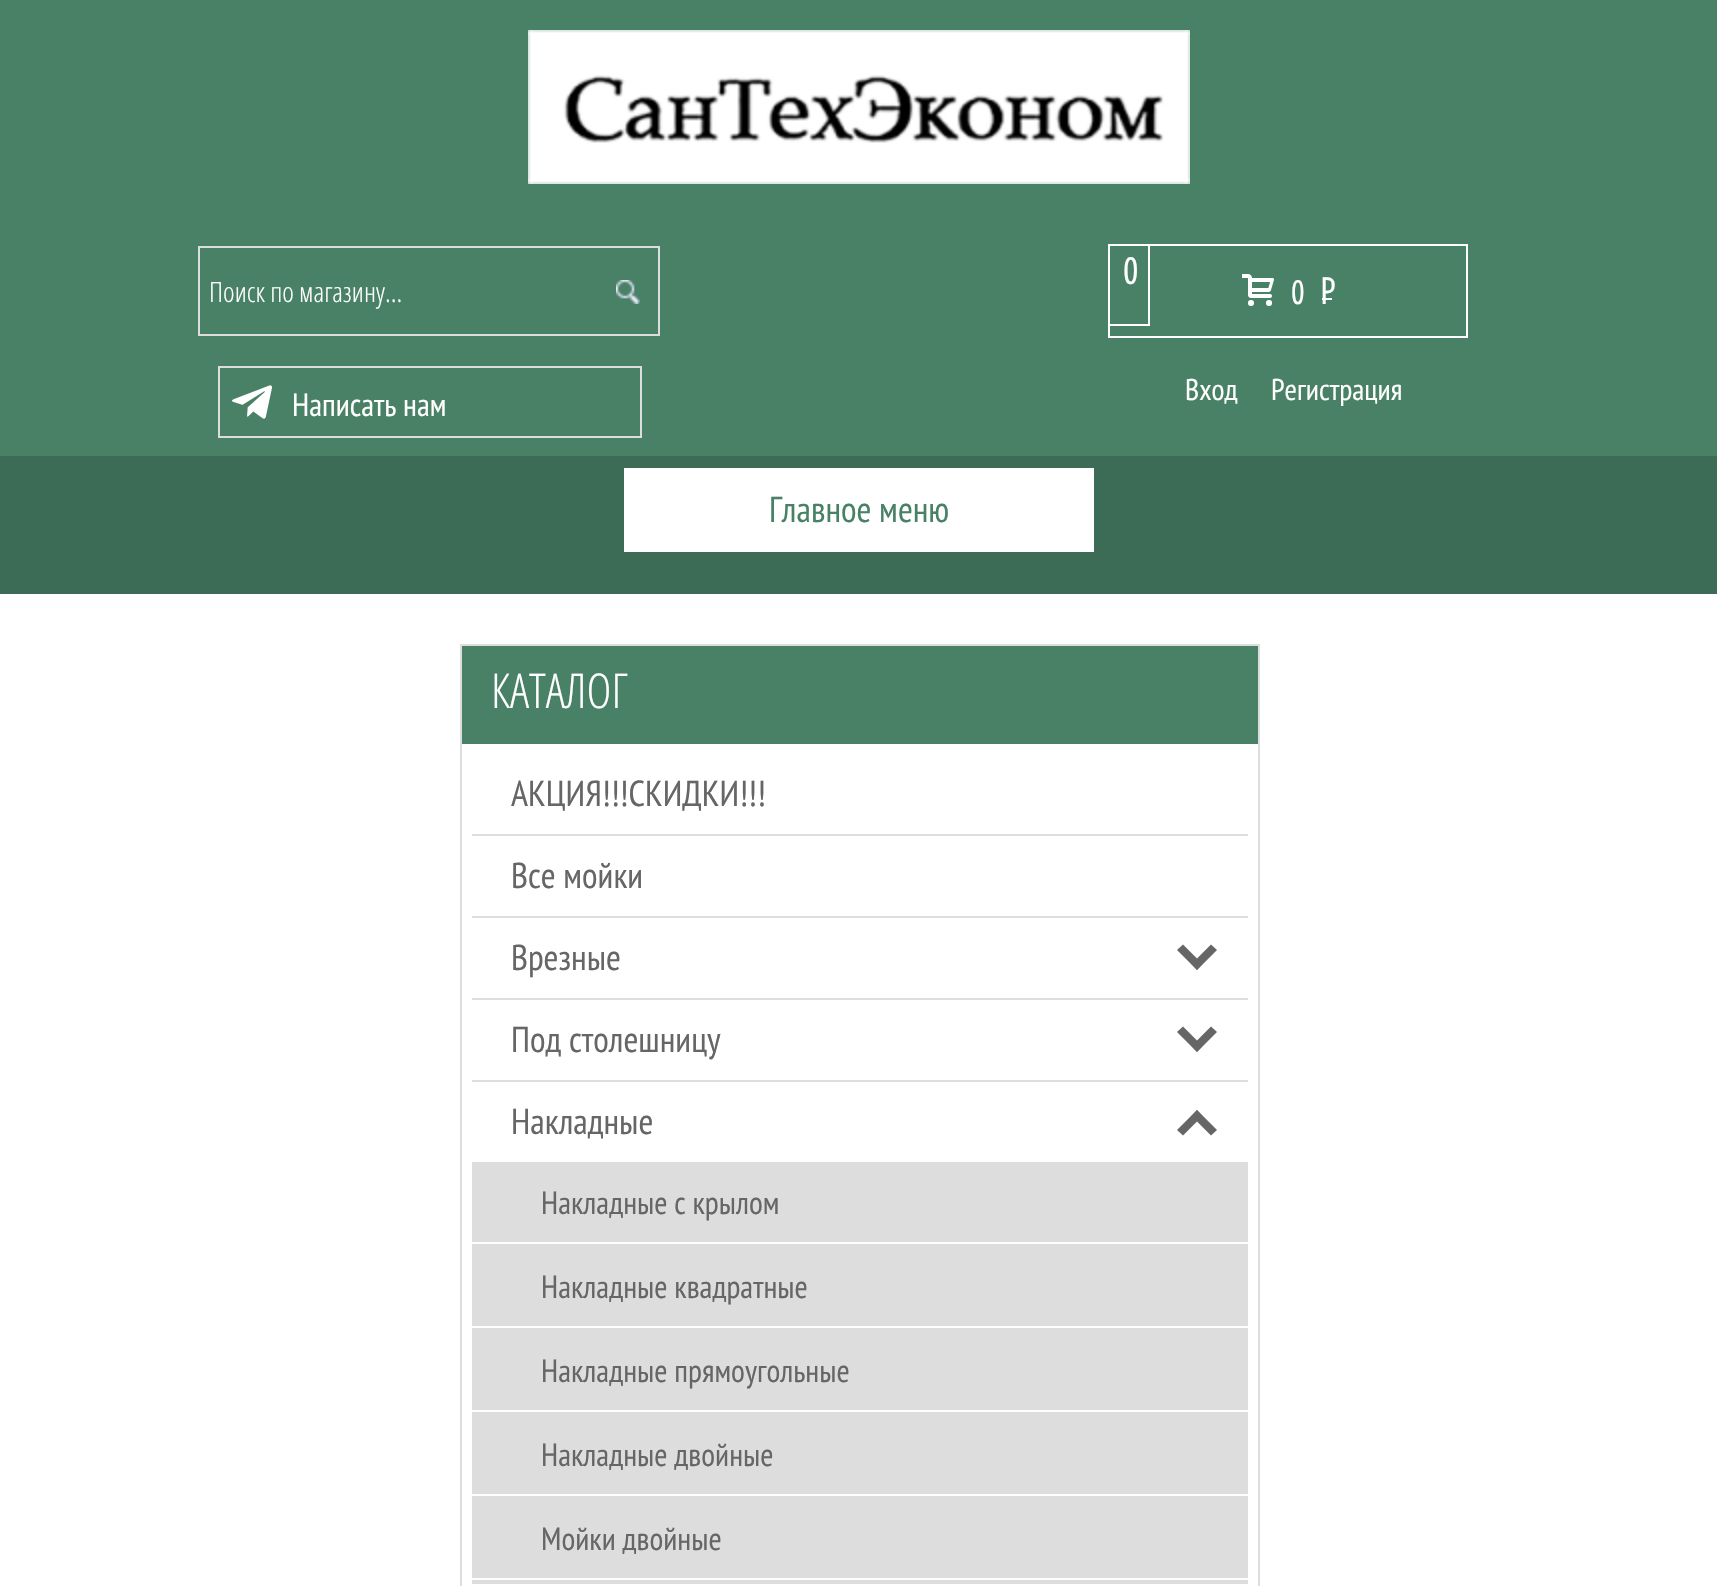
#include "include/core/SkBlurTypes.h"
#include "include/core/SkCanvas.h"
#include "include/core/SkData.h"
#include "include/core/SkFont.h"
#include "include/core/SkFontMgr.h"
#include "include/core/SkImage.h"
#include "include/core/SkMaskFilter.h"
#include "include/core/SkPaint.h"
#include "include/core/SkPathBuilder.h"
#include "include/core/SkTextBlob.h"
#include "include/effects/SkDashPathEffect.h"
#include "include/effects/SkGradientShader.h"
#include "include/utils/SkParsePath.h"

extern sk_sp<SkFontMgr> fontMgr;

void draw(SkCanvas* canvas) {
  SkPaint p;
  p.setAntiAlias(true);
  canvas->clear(SK_ColorWHITE);
  p.setColor(SkColorSetRGB(73, 129, 102));
  canvas->drawRect(SkRect::MakeLTRB(0, 0, 1717, 456), p);
  canvas->drawImageRect(SkImages::DeferredFromEncodedData(SkData::MakeFromFileName("images/1.png")), SkRect::MakeLTRB(528, 30, 1190, 184), SkSamplingOptions());
  p.setStyle(SkPaint::kStroke_Style);
  p.setStrokeWidth(2);
  p.setColor(SkColorSetRGB(221, 221, 221));
  canvas->drawRect(SkRect::MakeLTRB(199, 247, 659, 335), p);
  canvas->drawImageRect(SkImages::DeferredFromEncodedData(SkData::MakeFromFileName("images/2.png")), SkRect::MakeLTRB(616, 280, 640, 304), SkSamplingOptions());
  canvas->drawRect(SkRect::MakeLTRB(219, 367, 641, 437), p);
  canvas->drawImageRect(SkImages::DeferredFromEncodedData(SkData::MakeFromFileName("images/3.png")), SkRect::MakeLTRB(232, 385, 272, 419), SkSamplingOptions());
  p.setColor(SK_ColorWHITE);
  canvas->drawRect(SkRect::MakeLTRB(1109, 245, 1467, 337), p);
  canvas->drawRect(SkRect::MakeLTRB(1109, 245, 1149, 325), p);
  canvas->drawImageRect(SkImages::DeferredFromEncodedData(SkData::MakeFromFileName("images/4.png")), SkRect::MakeLTRB(1242, 274, 1274, 306), SkSamplingOptions());
  p.setStyle(SkPaint::kFill_Style);
  canvas->drawRect(SkRect::MakeLTRB(1322, 298, 1332, 300), p);
  p.setColor(SkColorSetRGB(61, 108, 86));
  canvas->drawRect(SkRect::MakeLTRB(0, 456, 1717, 594), p);
  p.setColor(SK_ColorWHITE);
  canvas->drawRect(SkRect::MakeLTRB(624, 468, 1094, 552), p);
  p.setStyle(SkPaint::kStroke_Style);
  p.setColor(SkColorSetRGB(221, 221, 221));
  canvas->drawRect(SkRect::MakeLTRB(461, 645, 1259, 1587), p);
  p.setStyle(SkPaint::kFill_Style);
  p.setColor(SkColorSetRGB(73, 129, 102));
  canvas->drawRect(SkRect::MakeLTRB(462, 646, 1258, 744), p);
  p.setColor(SkColorSetRGB(221, 221, 221));
  canvas->drawRect(SkRect::MakeLTRB(472, 834, 1248, 836), p);
  canvas->drawRect(SkRect::MakeLTRB(472, 916, 1248, 918), p);
  canvas->drawRect(SkRect::MakeLTRB(472, 998, 1248, 1000), p);
  p.setColor(SkColorSetRGB(102, 102, 102));
  canvas->drawPath(SkPathBuilder().moveTo(1211, 944.5f).lineTo(1217, 950).lineTo(1197, 970).lineTo(1191.5f, 964).close().detach(), p);
  canvas->drawPath(SkPathBuilder().moveTo(1183, 944.5f).lineTo(1202.5f, 964).lineTo(1197, 970).lineTo(1177, 950).close().detach(), p);
  p.setColor(SkColorSetRGB(221, 221, 221));
  canvas->drawRect(SkRect::MakeLTRB(472, 1080, 1248, 1082), p);
  p.setColor(SkColorSetRGB(102, 102, 102));
  canvas->drawPath(SkPathBuilder().moveTo(1211, 1026.5f).lineTo(1217, 1032).lineTo(1197, 1052).lineTo(1191.5f, 1046).close().detach(), p);
  canvas->drawPath(SkPathBuilder().moveTo(1183, 1026.5f).lineTo(1202.5f, 1046).lineTo(1197, 1052).lineTo(1177, 1032).close().detach(), p);
  p.setColor(SkColorSetRGB(221, 221, 221));
  canvas->drawRect(SkRect::MakeLTRB(472, 1580, 1248, 1584), p);
  p.setColor(SkColorSetRGB(102, 102, 102));
  canvas->drawPath(SkPathBuilder().moveTo(1183, 1135.5f).lineTo(1177, 1130).lineTo(1197, 1110).lineTo(1202.5f, 1116).close().detach(), p);
  canvas->drawPath(SkPathBuilder().moveTo(1211, 1135.5f).lineTo(1191.5f, 1116).lineTo(1197, 1110).lineTo(1217, 1130).close().detach(), p);
  p.setColor(SkColorSetRGB(221, 221, 221));
  canvas->drawRect(SkRect::MakeLTRB(472, 1244, 1248, 1326), p);
  canvas->drawRect(SkRect::MakeLTRB(472, 1162, 1248, 1242), p);
  canvas->drawRect(SkRect::MakeLTRB(472, 1328, 1248, 1410), p);
  canvas->drawRect(SkRect::MakeLTRB(472, 1412, 1248, 1494), p);
  canvas->drawRect(SkRect::MakeLTRB(472, 1496, 1248, 1578), p);
  SkFont font1(fontMgr->matchFamilyStyle("Open Sans Condensed", SkFontStyle(300, SkFontStyle::kNormal_Width, SkFontStyle::kUpright_Slant)), 28);
  font1.setSubpixel(true);
  p.setColor(SK_ColorWHITE);
  canvas->drawString("Поиск по магазину...", 209, 302, font1, p);
  SkFont font2(fontMgr->matchFamilyStyle("PT Sans Narrow", SkFontStyle::Normal()), 32);
  font2.setSubpixel(true);
  canvas->drawString("Написать нам", 292, 416, font2, p);
  SkFont font3(fontMgr->matchFamilyStyle("Open Sans Condensed", SkFontStyle::Bold()), 36);
  font3.setSubpixel(true);
  canvas->drawString("0", 1123, 284, font3, p);
  SkFont font4(fontMgr->matchFamilyStyle("Open Sans Condensed", SkFontStyle::Bold()), 32);
  font4.setSubpixel(true);
  canvas->drawString("0", 1291, 304, font4, p);
  canvas->drawString("P", 1320, 304, font3, p);
  SkFont font5(fontMgr->matchFamilyStyle("PT Sans Narrow", SkFontStyle::Normal()), 30);
  font5.setSubpixel(true);
  canvas->drawString("Вход", 1185, 400, font5, p);
  canvas->drawString("Регистрация", 1271, 400, font5, p);
  SkFont font6(fontMgr->matchFamilyStyle("PT Sans Narrow", SkFontStyle::Normal()), 36);
  font6.setSubpixel(true);
  p.setColor(SkColorSetRGB(73, 129, 102));
  canvas->drawString("Главное меню", 769, 522, font6, p);
  SkFont font7(fontMgr->matchFamilyStyle("Open Sans Condensed", SkFontStyle(300, SkFontStyle::kNormal_Width, SkFontStyle::kUpright_Slant)), 48);
  font7.setSubpixel(true);
  p.setColor(SK_ColorWHITE);
  canvas->drawString("КАТАЛОГ", 491, 708, font7, p);
  p.setColor(SkColorSetRGB(102, 102, 102));
  canvas->drawString("АКЦИЯ!!!СКИДКИ!!!", 511, 806, font6, p);
  canvas->drawString("Все мойки", 511, 888, font6, p);
  canvas->drawString("Врезные", 511, 970, font6, p);
  canvas->drawString("Под столешницу", 511, 1052, font6, p);
  canvas->drawString("Накладные", 511, 1134, font6, p);
  canvas->drawString("Накладные с крылом", 541, 1214, font2, p);
  canvas->drawString("Накладные квадратные", 541, 1298, font2, p);
  canvas->drawString("Накладные прямоугольные", 541, 1382, font2, p);
  canvas->drawString("Накладные двойные", 541, 1466, font2, p);
  canvas->drawString("Мойки двойные", 541, 1550, font2, p);
}
